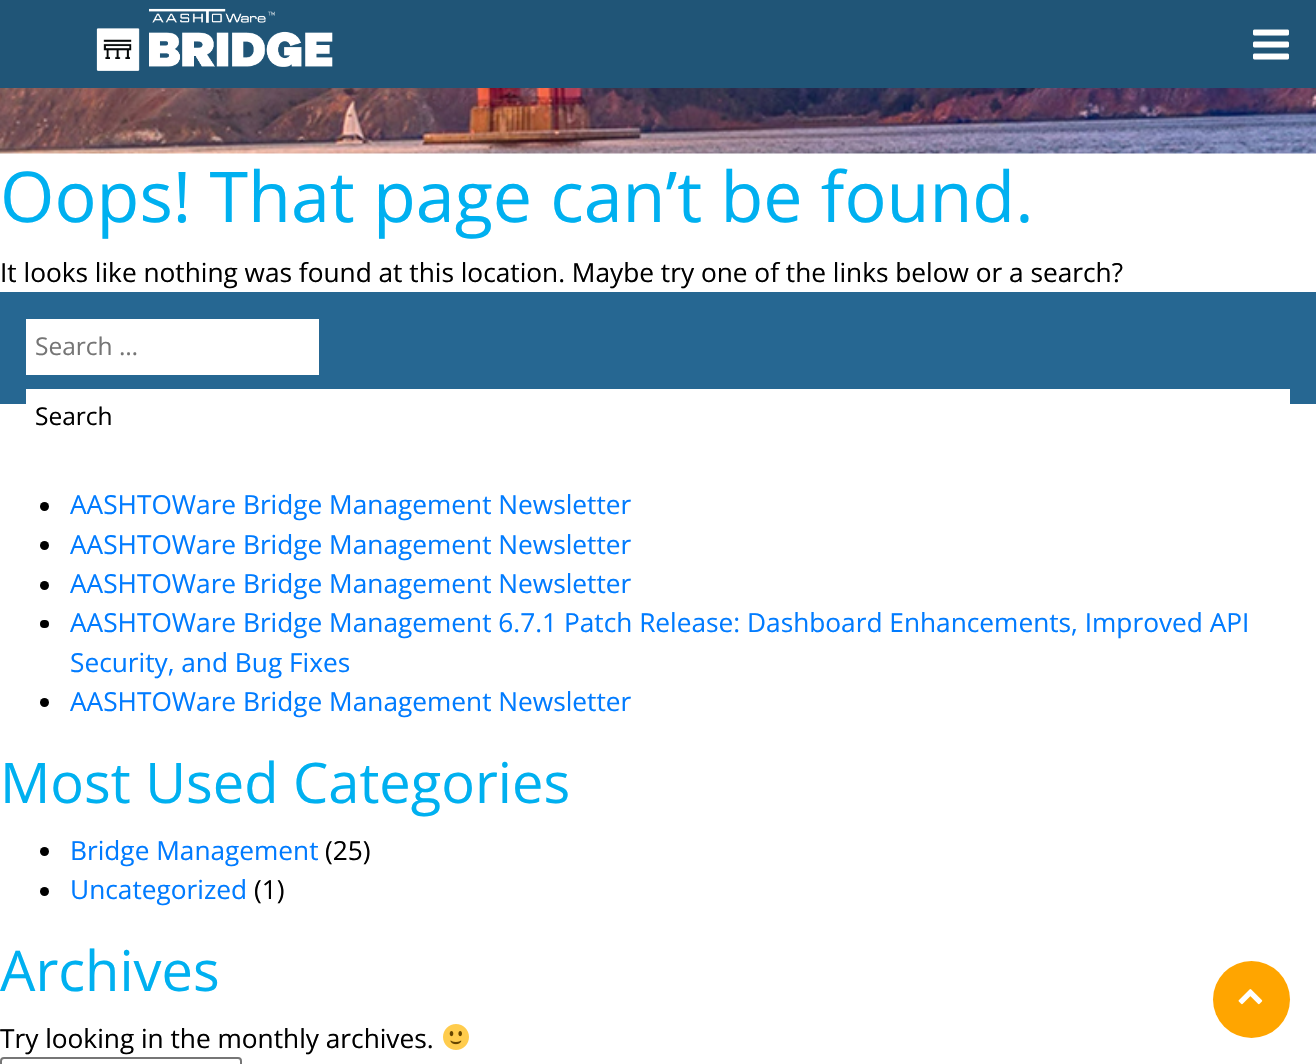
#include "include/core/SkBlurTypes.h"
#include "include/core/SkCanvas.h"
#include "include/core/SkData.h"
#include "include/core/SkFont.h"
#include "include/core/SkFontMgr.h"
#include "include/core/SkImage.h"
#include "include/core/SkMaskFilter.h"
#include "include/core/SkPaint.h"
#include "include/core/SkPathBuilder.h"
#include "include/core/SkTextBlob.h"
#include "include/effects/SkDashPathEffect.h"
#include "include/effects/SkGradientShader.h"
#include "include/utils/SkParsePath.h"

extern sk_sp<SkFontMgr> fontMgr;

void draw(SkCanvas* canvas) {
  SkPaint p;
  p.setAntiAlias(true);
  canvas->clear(SK_ColorWHITE);
  p.setColor(SkColorSetRGB(32, 85, 119));
  canvas->drawRect(SkRect::MakeLTRB(0, 0, 1316, 88), p);
  canvas->drawImageRect(SkImages::DeferredFromEncodedData(SkData::MakeFromFileName("images/1.png")), SkRect::MakeLTRB(96, 8, 333, 71), SkSamplingOptions());
  canvas->drawImageRect(SkImages::DeferredFromEncodedData(SkData::MakeFromFileName("images/2.png")), SkRect::MakeLTRB(1253, 29, 1289, 60), SkSamplingOptions());
  canvas->drawImageRect(SkImages::DeferredFromEncodedData(SkData::MakeFromFileName("images/3.png")), SkRect::MakeLTRB(0, 88, 1316, 154), SkSamplingOptions());
  p.setColor(SkColorSetRGB(38, 103, 146));
  canvas->drawRect(SkRect::MakeLTRB(0, 292, 1316, 404), p);
  p.setColor(SK_ColorWHITE);
  canvas->drawRect(SkRect::MakeLTRB(26, 319, 319, 375), p);
  canvas->drawRect(SkRect::MakeLTRB(26, 389, 1290, 404), p);
  p.setColor(SK_ColorBLACK);
  canvas->drawCircle(44.5f, 506.5f, 4.5f, p);
  canvas->drawCircle(44.5f, 545.5f, 4.5f, p);
  canvas->drawCircle(44.5f, 585.5f, 4.5f, p);
  canvas->drawRoundRect(SkRect::MakeLTRB(40, 620, 49, 628), 4, 4, p);
  canvas->drawCircle(44.5f, 702.5f, 4.5f, p);
  canvas->drawCircle(44.5f, 851.5f, 4.5f, p);
  canvas->drawCircle(44.5f, 891.5f, 4.5f, p);
  canvas->drawImageRect(SkImages::DeferredFromEncodedData(SkData::MakeFromFileName("images/4.png")), SkRect::MakeLTRB(443, 1024, 469, 1050), SkSamplingOptions());
  p.setStyle(SkPaint::kStroke_Style);
  p.setStrokeWidth(2);
  p.setColor(SkColorSetRGB(118, 118, 118));
  canvas->drawRoundRect(SkRect::MakeLTRB(1, 1058, 241, 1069), 3, 3, p);
  p.setStyle(SkPaint::kFill_Style);
  p.setColor(SkColorSetRGB(255, 165, 0));
  canvas->drawCircle(1251.5f, 999.5f, 38.5f, p);
  canvas->drawImageRect(SkImages::DeferredFromEncodedData(SkData::MakeFromFileName("images/5.png")), SkRect::MakeLTRB(1238, 989, 1263, 1005), SkSamplingOptions());
  SkFont font1(fontMgr->matchFamilyStyle("Open Sans", SkFontStyle::Normal()), 70);
  font1.setSubpixel(true);
  p.setColor(SkColorSetRGB(0, 176, 240));
  canvas->drawString("Oops! That page can’t be found.", 0, 222, font1, p);
  SkFont font2(fontMgr->matchFamilyStyle("Open Sans", SkFontStyle::Normal()), 26.25f);
  font2.setSubpixel(true);
  p.setColor(SK_ColorBLACK);
  canvas->drawString("It looks like nothing was found at this location. Maybe try one of the links below or a search?", 0, 282, font2, p);
  SkFont font3(fontMgr->matchFamilyStyle("Open Sans", SkFontStyle::Normal()), 24.5f);
  font3.setSubpixel(true);
  p.setColor(SkColorSetRGB(117, 117, 117));
  canvas->drawString("Search …", 35, 355, font3, p);
  p.setColor(SK_ColorBLACK);
  canvas->drawString("Search", 35, 425, font3, p);
  p.setColor(SkColorSetRGB(0, 123, 255));
  canvas->drawString("AASHTOWare Bridge Management Newsletter", 70, 514, font2, p);
  canvas->drawString("AASHTOWare Bridge Management Newsletter", 70, 554, font2, p);
  canvas->drawString("AASHTOWare Bridge Management Newsletter", 70, 593, font2, p);
  canvas->drawString("AASHTOWare Bridge Management 6.7.1 Patch Release: Dashboard Enhancements, Improved API", 70, 632, font2, p);
  canvas->drawString("Security, and Bug Fixes", 70, 672, font2, p);
  canvas->drawString("AASHTOWare Bridge Management Newsletter", 70, 711, font2, p);
  SkFont font4(fontMgr->matchFamilyStyle("Open Sans", SkFontStyle::Normal()), 56);
  font4.setSubpixel(true);
  p.setColor(SkColorSetRGB(0, 176, 240));
  canvas->drawString("Most Used Categories", 0, 803, font4, p);
  p.setColor(SkColorSetRGB(0, 123, 255));
  canvas->drawString("Bridge Management", 70, 860, font2, p);
  p.setColor(SK_ColorBLACK);
  canvas->drawString("(25)", 325, 860, font2, p);
  p.setColor(SkColorSetRGB(0, 123, 255));
  canvas->drawString("Uncategorized", 70, 899, font2, p);
  p.setColor(SK_ColorBLACK);
  canvas->drawString("(1)", 254, 899, font2, p);
  p.setColor(SkColorSetRGB(0, 176, 240));
  canvas->drawString("Archives", 0, 991, font4, p);
  p.setColor(SK_ColorBLACK);
  canvas->drawString("Try looking in the monthly archives.", 0, 1048, font2, p);
}
